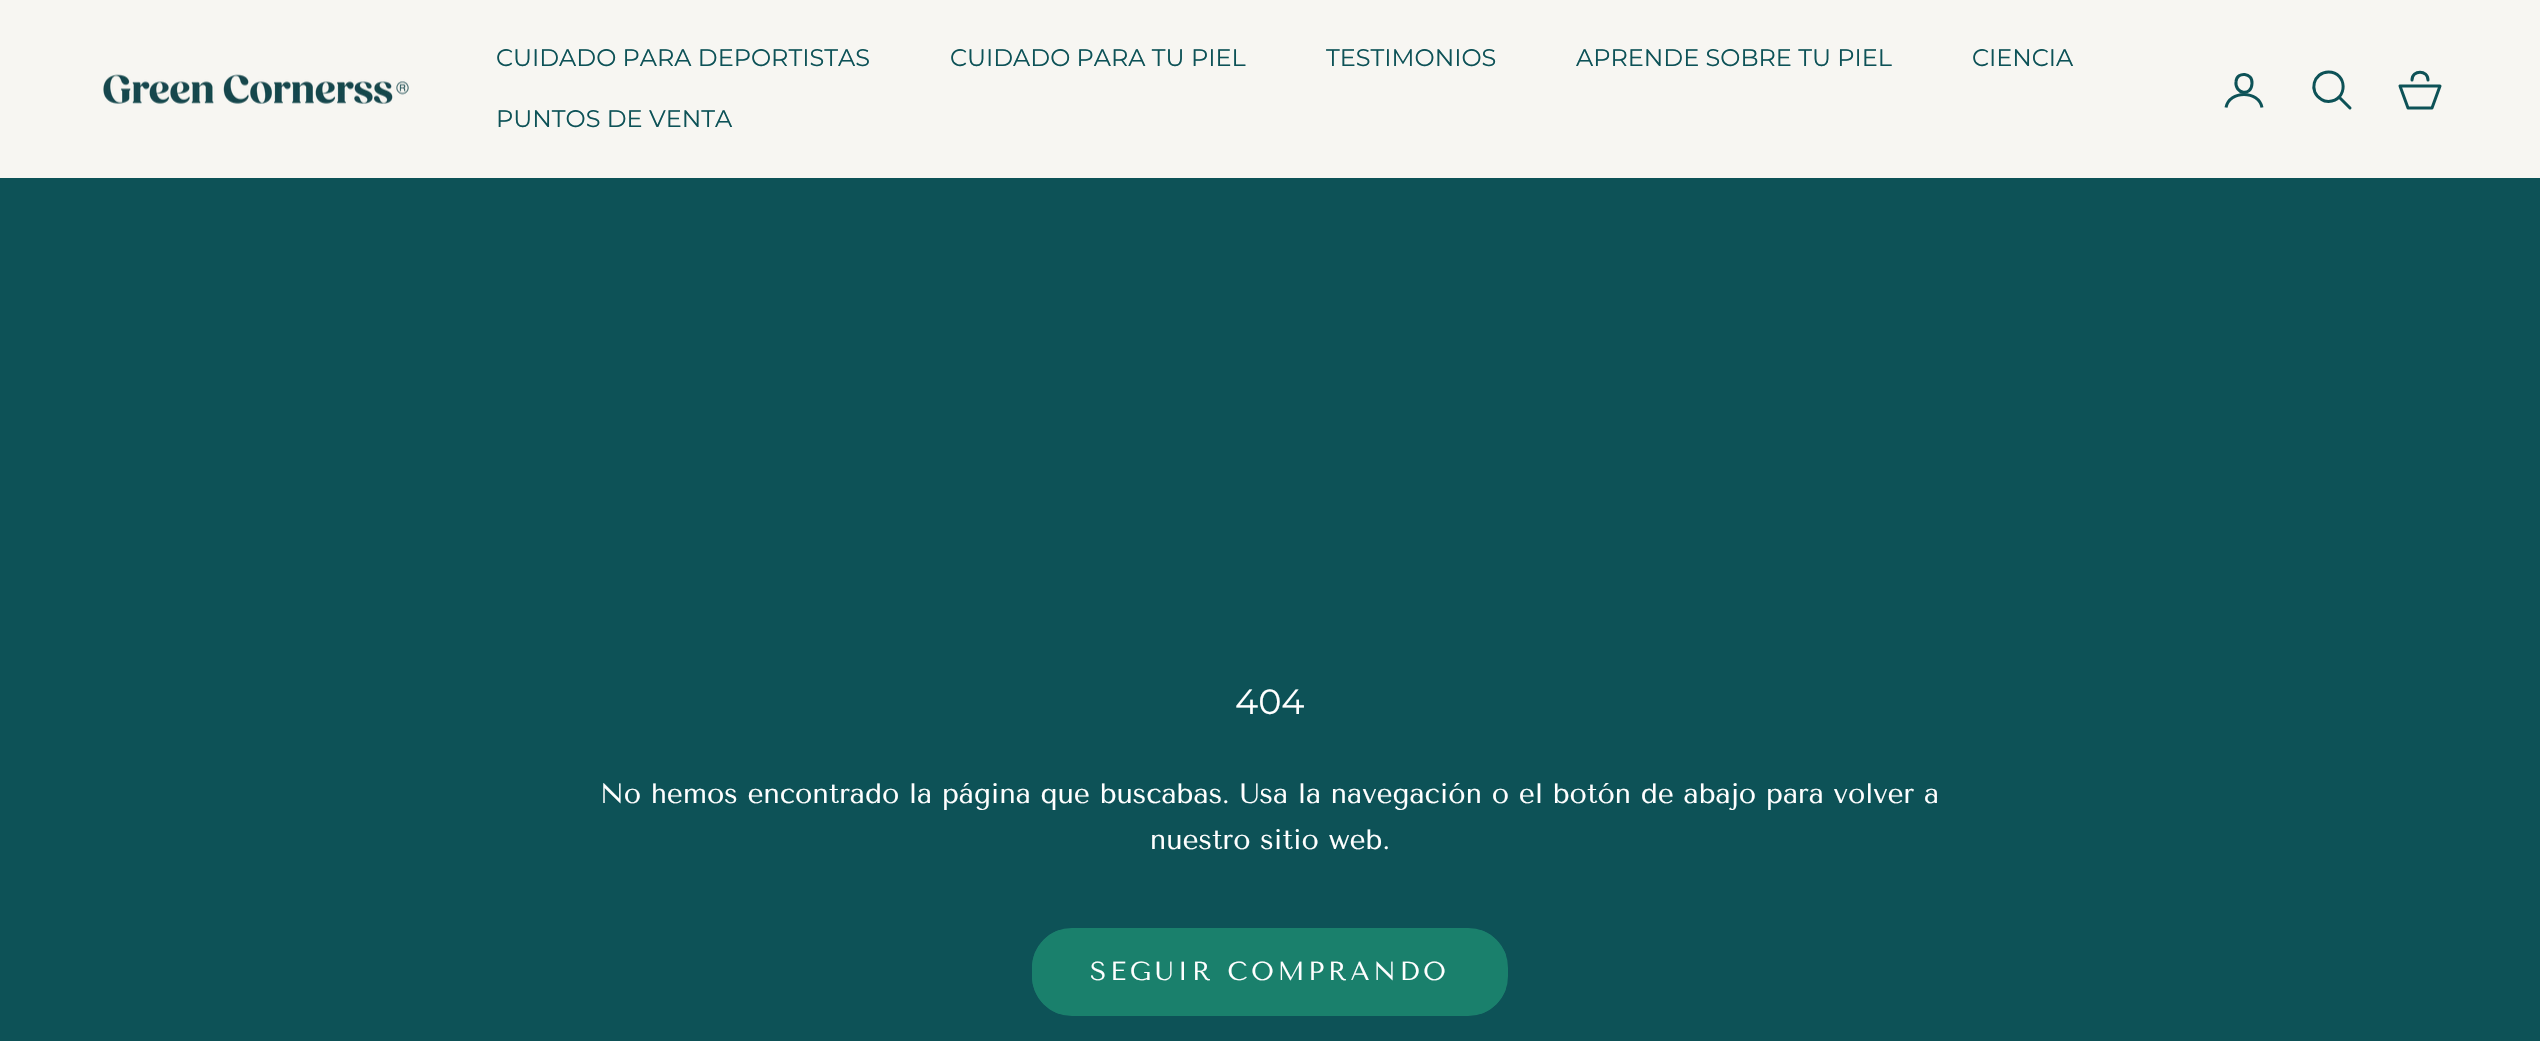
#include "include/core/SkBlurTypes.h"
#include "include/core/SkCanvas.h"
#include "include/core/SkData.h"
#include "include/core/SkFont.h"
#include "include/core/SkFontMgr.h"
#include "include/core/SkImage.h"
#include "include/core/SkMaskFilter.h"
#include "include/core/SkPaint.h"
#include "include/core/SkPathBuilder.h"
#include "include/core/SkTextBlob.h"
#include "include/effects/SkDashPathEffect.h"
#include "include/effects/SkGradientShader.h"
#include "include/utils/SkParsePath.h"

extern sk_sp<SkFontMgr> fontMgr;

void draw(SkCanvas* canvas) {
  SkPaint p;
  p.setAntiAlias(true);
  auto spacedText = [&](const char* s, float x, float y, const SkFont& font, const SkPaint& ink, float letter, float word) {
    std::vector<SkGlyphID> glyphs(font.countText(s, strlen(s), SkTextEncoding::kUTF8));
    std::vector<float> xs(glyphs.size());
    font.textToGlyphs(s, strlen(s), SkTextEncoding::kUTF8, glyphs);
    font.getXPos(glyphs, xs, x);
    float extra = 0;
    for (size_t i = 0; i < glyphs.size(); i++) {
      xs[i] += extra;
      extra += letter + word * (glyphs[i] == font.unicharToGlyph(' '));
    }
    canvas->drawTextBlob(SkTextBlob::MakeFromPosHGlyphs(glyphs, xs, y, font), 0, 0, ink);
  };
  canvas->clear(SkColorSetRGB(13, 82, 87));
  p.setColor(SkColorSetRGB(247, 246, 242));
  canvas->drawRect(SkRect::MakeLTRB(0, 0, 2540, 178), p);
  canvas->drawImageRect(SkImages::DeferredFromEncodedData(SkData::MakeFromFileName("images/1.png")), SkRect::MakeLTRB(103, 74, 409, 104), SkSamplingOptions());
  p.setStyle(SkPaint::kStroke_Style);
  p.setStrokeWidth(3);
  p.setStrokeCap(SkPaint::kRound_Cap);
  p.setStrokeJoin(SkPaint::kRound_Join);
  p.setColor(SkColorSetRGB(13, 82, 87));
  canvas->drawPath(SkPathBuilder().moveTo(2252, 83.5f).cubicTo(2251.5f, 97, 2234.5f, 94, 2236, 81.5f).cubicTo(2237, 71, 2253, 72.5f, 2252, 83.5f).close().detach(), p);
  p.setStrokeCap(SkPaint::kButt_Cap);
  p.setStrokeJoin(SkPaint::kMiter_Join);
  canvas->drawPath(SkPathBuilder().moveTo(2226, 107.5f).cubicTo(2229, 90, 2259, 90, 2262, 107.5f).detach(), p);
  canvas->drawPath(SkPathBuilder().moveTo(2328.5f, 72).cubicTo(2313.5f, 72, 2308, 92, 2321.5f, 99.5f).cubicTo(2323.5f, 101, 2326, 101.5f, 2328.5f, 101.5f).cubicTo(2348.5f, 100.5f, 2347.5f, 72, 2328.5f, 72).close().detach(), p);
  p.setStrokeCap(SkPaint::kRound_Cap);
  canvas->drawPath(SkPathBuilder().moveTo(2339.5f, 97.5f).lineTo(2350, 108).detach(), p);
  p.setStrokeJoin(SkPaint::kRound_Join);
  canvas->drawPath(SkPathBuilder().moveTo(2400, 86).lineTo(2440, 86).lineTo(2432, 108).lineTo(2408, 108).close().moveTo(2428, 80).cubicTo(2428, 69.5f, 2412, 69.5f, 2412, 80).detach(), p);
  canvas->save();
  canvas->clipPath(SkPathBuilder().moveTo(1072, 928).lineTo(1468, 928).cubicTo(1490, 928, 1508, 946, 1508, 968).lineTo(1508, 976).cubicTo(1508, 998, 1490, 1016, 1468, 1016).lineTo(1072, 1016).cubicTo(1050, 1016, 1032, 998, 1032, 976).lineTo(1032, 968).cubicTo(1032, 946, 1050, 928, 1072, 928).close().detach(), true);
  p.setStyle(SkPaint::kFill_Style);
  p.setColor(SkColorSetRGB(26, 128, 108));
  canvas->drawRect(SkRect::MakeLTRB(1032, 930, 1506, 1014), p);
  canvas->restore();
  p.setStyle(SkPaint::kStroke_Style);
  p.setStrokeWidth(2);
  p.setStrokeCap(SkPaint::kButt_Cap);
  p.setStrokeJoin(SkPaint::kMiter_Join);
  canvas->drawRoundRect(SkRect::MakeLTRB(1033, 929, 1507, 1015), 39, 39, p);
  SkFont font1(fontMgr->matchFamilyStyle("Montserrat", SkFontStyle(100, SkFontStyle::kNormal_Width, SkFontStyle::kUpright_Slant)), 24);
  font1.setSubpixel(true);
  p.setStyle(SkPaint::kFill_Style);
  p.setColor(SkColorSetRGB(13, 82, 87));
  canvas->drawString("CUIDADO PARA DEPORTISTAS", 496, 66, font1, p);
  canvas->drawString("CUIDADO PARA TU PIEL", 950, 66, font1, p);
  canvas->drawString("TESTIMONIOS", 1326, 66, font1, p);
  canvas->drawString("APRENDE SOBRE TU PIEL", 1576, 66, font1, p);
  canvas->drawString("CIENCIA", 1972, 66, font1, p);
  canvas->drawString("PUNTOS DE VENTA", 496, 127, font1, p);
  SkFont font2(fontMgr->matchFamilyStyle("Montserrat", SkFontStyle(100, SkFontStyle::kNormal_Width, SkFontStyle::kUpright_Slant)), 35);
  font2.setSubpixel(true);
  p.setColor(SK_ColorWHITE);
  canvas->drawString("404", 1235, 714, font2, p);
  SkFont font3(fontMgr->matchFamilyStyle("Tenor Sans", SkFontStyle::Normal()), 28);
  font3.setSubpixel(true);
  canvas->drawString("No hemos encontrado la página que buscabas. Usa la navegación o el botón de abajo para volver a", 600, 803, font3, p);
  canvas->drawString("nuestro sitio web.", 1150, 849, font3, p);
  SkFont font4(fontMgr->matchFamilyStyle("Tenor Sans", SkFontStyle::Normal()), 26);
  font4.setSubpixel(true);
  spacedText("SEGUIR COMPRANDO", 1090, 980, font4, p, 3.9f, 0);
}
